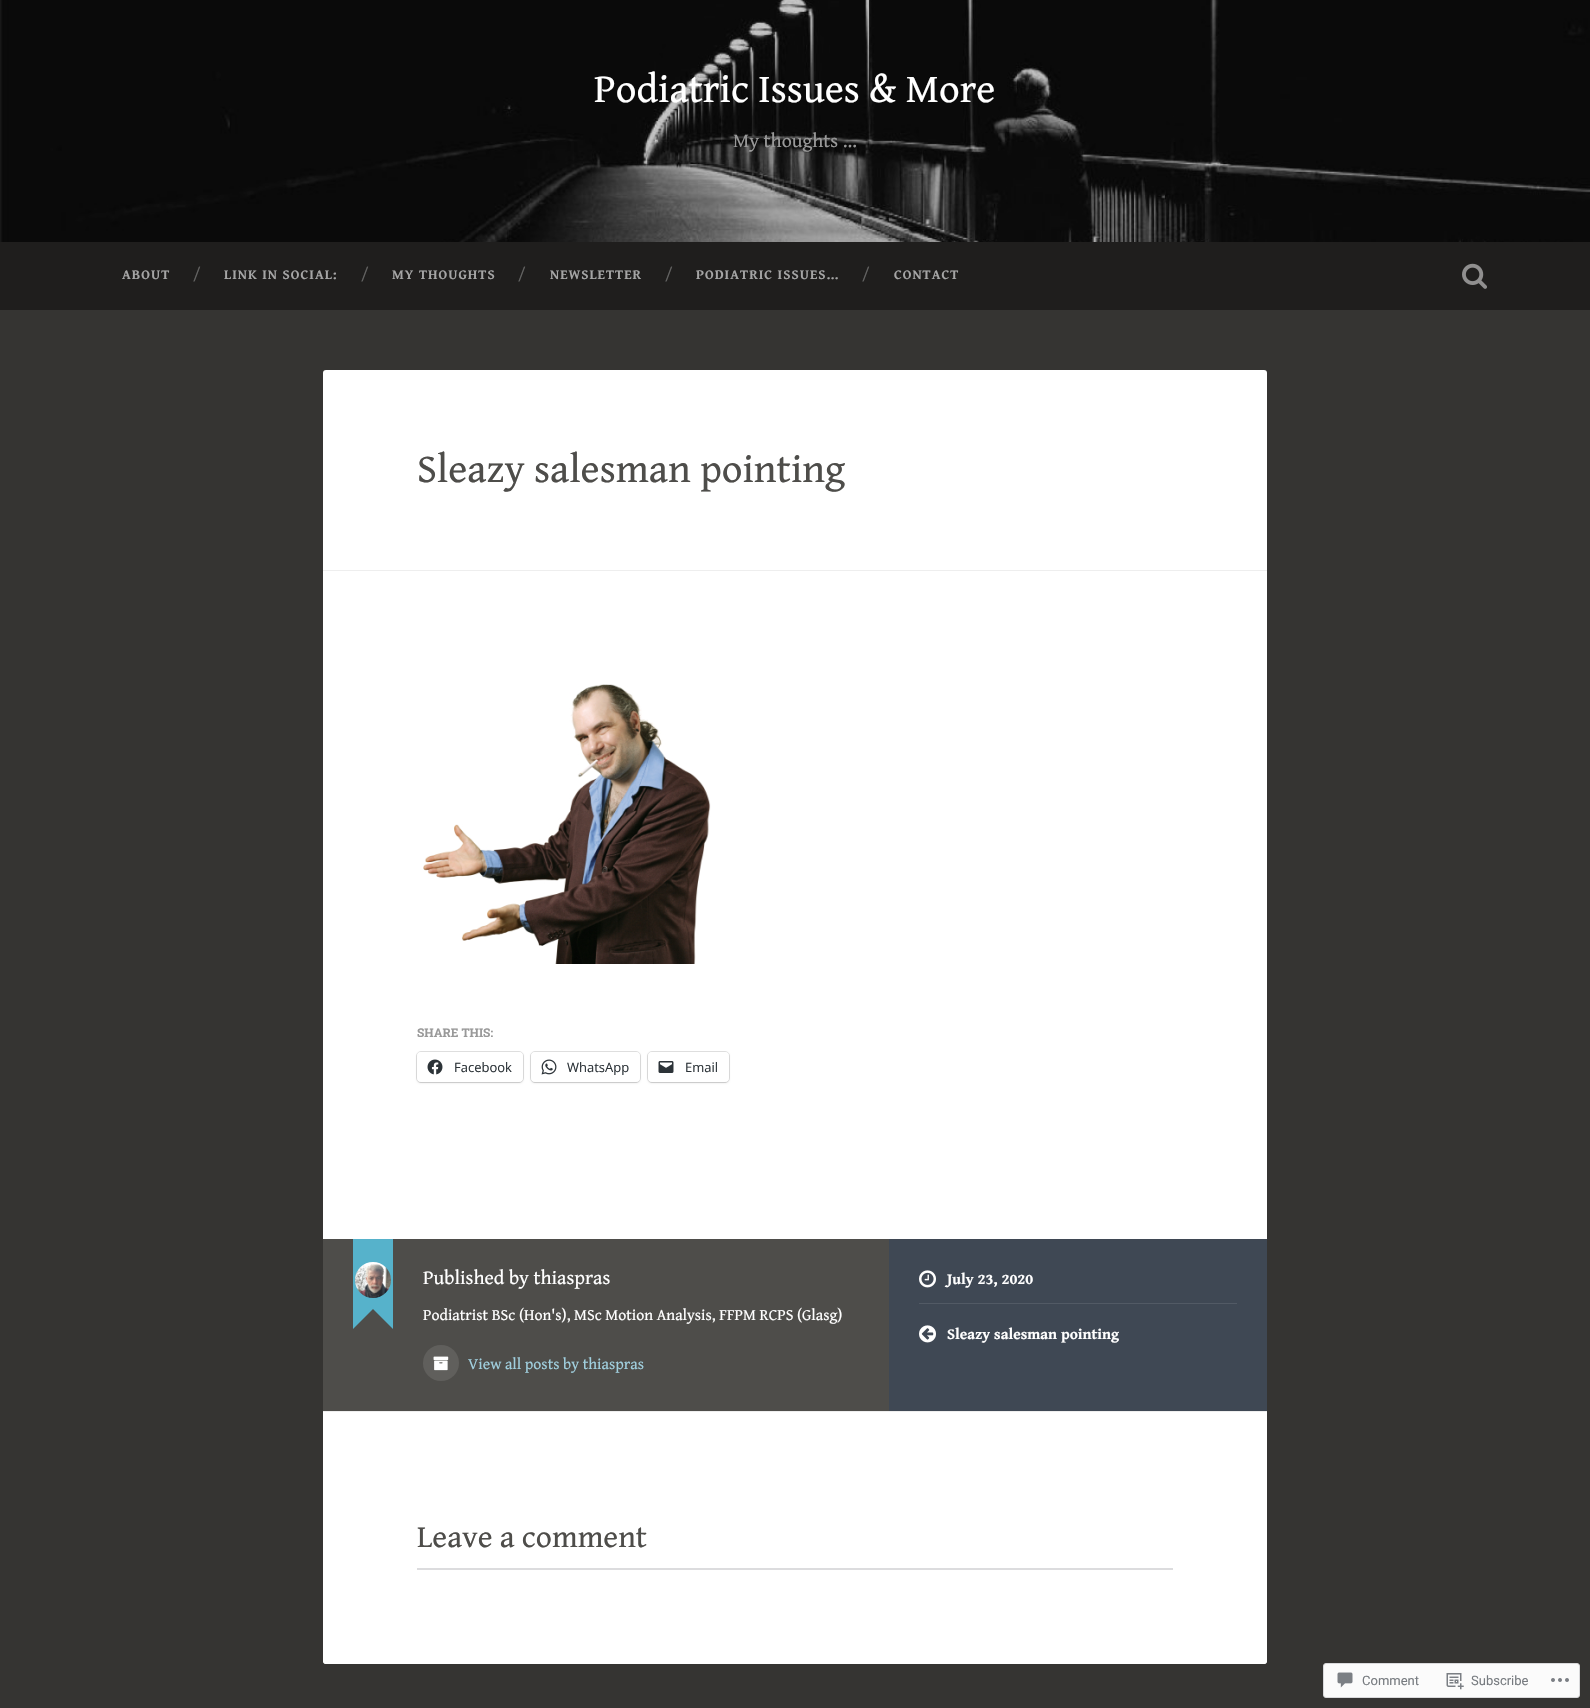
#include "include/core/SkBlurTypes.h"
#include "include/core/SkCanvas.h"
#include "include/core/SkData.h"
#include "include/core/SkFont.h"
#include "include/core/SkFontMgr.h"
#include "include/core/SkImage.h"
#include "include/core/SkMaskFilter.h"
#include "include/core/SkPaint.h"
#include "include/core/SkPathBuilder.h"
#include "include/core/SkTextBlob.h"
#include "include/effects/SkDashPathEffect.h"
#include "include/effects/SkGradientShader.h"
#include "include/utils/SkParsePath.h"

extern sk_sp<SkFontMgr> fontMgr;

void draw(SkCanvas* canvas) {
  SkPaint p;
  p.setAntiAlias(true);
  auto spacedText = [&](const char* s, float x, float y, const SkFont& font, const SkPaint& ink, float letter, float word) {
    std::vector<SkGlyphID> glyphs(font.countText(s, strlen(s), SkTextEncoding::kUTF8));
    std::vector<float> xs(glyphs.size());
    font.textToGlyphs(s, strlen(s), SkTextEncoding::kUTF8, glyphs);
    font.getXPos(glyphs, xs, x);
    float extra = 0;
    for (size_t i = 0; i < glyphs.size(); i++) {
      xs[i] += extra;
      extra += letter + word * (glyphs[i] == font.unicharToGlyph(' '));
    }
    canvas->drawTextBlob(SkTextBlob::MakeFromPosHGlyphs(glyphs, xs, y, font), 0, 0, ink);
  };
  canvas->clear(SkColorSetRGB(53, 52, 50));
  canvas->drawImageRect(SkImages::DeferredFromEncodedData(SkData::MakeFromFileName("images/1.png")), SkRect::MakeLTRB(0, 0, 1590, 242), SkSamplingOptions());
  p.setColor(SkColorSetRGB(31, 30, 29));
  canvas->drawRect(SkRect::MakeLTRB(0, 242, 1590, 310), p);
  canvas->drawImageRect(SkImages::DeferredFromEncodedData(SkData::MakeFromFileName("images/2.png")), SkRect::MakeLTRB(1462, 263, 1487, 289), SkSamplingOptions());
  p.setColor(SK_ColorWHITE);
  canvas->drawRoundRect(SkRect::MakeLTRB(323, 370, 1267, 1664), 3, 3, p);
  p.setColor(SkColorSetRGB(238, 238, 238));
  canvas->drawRect(SkRect::MakeLTRB(323, 570, 1267, 571), p);
  canvas->drawImageRect(SkImages::DeferredFromEncodedData(SkData::MakeFromFileName("images/3.png")), SkRect::MakeLTRB(423, 684, 711, 964), SkSamplingOptions());
  p.setStyle(SkPaint::kStroke_Style);
  p.setStrokeWidth(1);
  p.setColor(SkColorSetRGB(224, 224, 224));
  canvas->drawRoundRect(SkRect::MakeLTRB(416.5f, 1051.5f, 523.5f, 1082.5f), 4.5f, 4.5f, p);
  p.setStyle(SkPaint::kFill_Style);
  p.setColor(SkColorSetARGB(31, 0, 0, 0));
  p.setMaskFilter(SkMaskFilter::MakeBlur(kNormal_SkBlurStyle, 1));
  canvas->drawRoundRect(SkRect::MakeLTRB(417, 1053, 523, 1083), 4, 4, p);
  p.setMaskFilter(nullptr);
  p.setColor(SK_ColorWHITE);
  canvas->drawRoundRect(SkRect::MakeLTRB(417, 1052, 523, 1082), 4, 4, p);
  canvas->drawImageRect(SkImages::DeferredFromEncodedData(SkData::MakeFromFileName("images/4.png")), SkRect::MakeLTRB(427, 1059, 443, 1075), SkSamplingOptions());
  p.setStyle(SkPaint::kStroke_Style);
  p.setColor(SkColorSetRGB(224, 224, 224));
  canvas->drawRoundRect(SkRect::MakeLTRB(530.5f, 1051.5f, 640.5f, 1082.5f), 4.5f, 4.5f, p);
  p.setStyle(SkPaint::kFill_Style);
  p.setColor(SkColorSetARGB(31, 0, 0, 0));
  p.setMaskFilter(SkMaskFilter::MakeBlur(kNormal_SkBlurStyle, 1));
  canvas->drawRoundRect(SkRect::MakeLTRB(531, 1053, 640, 1083), 4, 4, p);
  p.setMaskFilter(nullptr);
  p.setColor(SK_ColorWHITE);
  canvas->drawRoundRect(SkRect::MakeLTRB(531, 1052, 640, 1082), 4, 4, p);
  canvas->drawImageRect(SkImages::DeferredFromEncodedData(SkData::MakeFromFileName("images/5.png")), SkRect::MakeLTRB(541, 1059, 557, 1075), SkSamplingOptions());
  p.setStyle(SkPaint::kStroke_Style);
  p.setColor(SkColorSetRGB(224, 224, 224));
  canvas->drawRoundRect(SkRect::MakeLTRB(647.5f, 1051.5f, 729.5f, 1082.5f), 4.5f, 4.5f, p);
  p.setStyle(SkPaint::kFill_Style);
  p.setColor(SkColorSetARGB(31, 0, 0, 0));
  p.setMaskFilter(SkMaskFilter::MakeBlur(kNormal_SkBlurStyle, 1));
  canvas->drawRoundRect(SkRect::MakeLTRB(648, 1053, 729, 1083), 4, 4, p);
  p.setMaskFilter(nullptr);
  p.setColor(SK_ColorWHITE);
  canvas->drawRoundRect(SkRect::MakeLTRB(648, 1052, 729, 1082), 4, 4, p);
  canvas->drawImageRect(SkImages::DeferredFromEncodedData(SkData::MakeFromFileName("images/6.png")), SkRect::MakeLTRB(658, 1061, 674, 1073), SkSamplingOptions());
  p.setColor(SkColorSetRGB(78, 77, 74));
  canvas->drawRect(SkRect::MakeLTRB(323, 1239, 889, 1411), p);
  p.setColor(SkColorSetRGB(86, 178, 203));
  canvas->drawPath(SkPathBuilder().moveTo(393, 1289).lineTo(393, 1329).lineTo(373, 1309).close().moveTo(353, 1329).lineTo(353, 1289).lineTo(373, 1309).close().detach(), p);
  canvas->drawRect(SkRect::MakeLTRB(353, 1239, 393, 1309), p);
  canvas->drawImageRect(SkImages::DeferredFromEncodedData(SkData::MakeFromFileName("images/7.png")), SkRect::MakeLTRB(355, 1262, 391, 1298), SkSamplingOptions());
  p.setColor(SkColorSetRGB(96, 95, 92));
  canvas->drawCircle(441, 1363, 18, p);
  canvas->drawImageRect(SkImages::DeferredFromEncodedData(SkData::MakeFromFileName("images/8.png")), SkRect::MakeLTRB(433, 1356, 449, 1371), SkSamplingOptions());
  p.setColor(SkColorSetRGB(63, 72, 84));
  canvas->drawRect(SkRect::MakeLTRB(889, 1239, 1267, 1411), p);
  canvas->drawImageRect(SkImages::DeferredFromEncodedData(SkData::MakeFromFileName("images/9.png")), SkRect::MakeLTRB(919, 1270, 936, 1288), SkSamplingOptions());
  p.setColor(SkColorSetRGB(82, 90, 101));
  canvas->drawRect(SkRect::MakeLTRB(919, 1303, 1237, 1304), p);
  canvas->drawImageRect(SkImages::DeferredFromEncodedData(SkData::MakeFromFileName("images/10.png")), SkRect::MakeLTRB(919, 1325, 936, 1343), SkSamplingOptions());
  p.setColor(SK_ColorWHITE);
  canvas->drawPath(SkPathBuilder().moveTo(323, 1411).lineTo(1267, 1411).lineTo(1267, 1661).cubicTo(1267, 1662.5f, 1265.5f, 1664, 1264, 1664).lineTo(326, 1664).cubicTo(324.5f, 1664, 323, 1662.5f, 323, 1661).close().detach(), p);
  p.setColor(SkColorSetRGB(238, 238, 238));
  canvas->drawRect(SkRect::MakeLTRB(323, 1411, 1267, 1412), p);
  p.setColor(SkColorSetRGB(220, 220, 222));
  canvas->drawRect(SkRect::MakeLTRB(417, 1568, 1173, 1570), p);
  p.setColor(SkColorSetRGB(251, 251, 251));
  canvas->drawRoundRect(SkRect::MakeLTRB(1323.5f, 1663.5f, 1579.5f, 1697.5f), 2.5f, 2.5f, p);
  p.setStyle(SkPaint::kStroke_Style);
  p.setColor(SkColorSetRGB(217, 217, 219));
  canvas->drawRoundRect(SkRect::MakeLTRB(1323.5f, 1663.5f, 1579.5f, 1697.5f), 2.5f, 2.5f, p);
  canvas->drawImageRect(SkImages::DeferredFromEncodedData(SkData::MakeFromFileName("images/11.png")), SkRect::MakeLTRB(1337, 1672, 1353, 1688), SkSamplingOptions());
  canvas->drawImageRect(SkImages::DeferredFromEncodedData(SkData::MakeFromFileName("images/12.png")), SkRect::MakeLTRB(1446, 1673, 1464, 1690), SkSamplingOptions());
  canvas->drawImageRect(SkImages::DeferredFromEncodedData(SkData::MakeFromFileName("images/13.png")), SkRect::MakeLTRB(1551, 1678, 1569, 1682), SkSamplingOptions());
  SkFont font1(fontMgr->matchFamilyStyle("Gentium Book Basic", SkFontStyle::Normal()), 40.5f);
  font1.setSubpixel(true);
  p.setStyle(SkPaint::kFill_Style);
  p.setColor(SK_ColorWHITE);
  canvas->drawString("Podiatric Issues & More", 594, 102, font1, p);
  SkFont font2(fontMgr->matchFamilyStyle("Gentium Book Basic", SkFontStyle::Normal()), 19.75f);
  font2.setSubpixel(true);
  p.setColor(SkColorSetRGB(153, 153, 153));
  canvas->drawString("My thoughts …", 733, 147, font2, p);
  SkFont font3(fontMgr->matchFamilyStyle("Gentium Book Basic", SkFontStyle::Bold()), 13.75f);
  font3.setSubpixel(true);
  p.setColor(SkColorSetRGB(165, 165, 165));
  spacedText("ABOUT", 122, 279, font3, p, 1, 0);
  SkFont font4(fontMgr->matchFamilyStyle("Gentium Book Basic", SkFontStyle::Normal()), 16);
  font4.setSubpixel(true);
  p.setColor(SkColorSetRGB(98, 98, 97));
  canvas->drawString("/", 193, 279, font4, p);
  p.setColor(SkColorSetRGB(165, 165, 165));
  spacedText("LINK IN SOCIAL:", 224, 279, font3, p, 1, 0);
  p.setColor(SkColorSetRGB(98, 98, 97));
  canvas->drawString("/", 361, 279, font4, p);
  p.setColor(SkColorSetRGB(165, 165, 165));
  spacedText("MY THOUGHTS", 392, 279, font3, p, 1, 0);
  p.setColor(SkColorSetRGB(98, 98, 97));
  canvas->drawString("/", 518, 279, font4, p);
  p.setColor(SkColorSetRGB(165, 165, 165));
  spacedText("NEWSLETTER", 550, 279, font3, p, 1, 0);
  p.setColor(SkColorSetRGB(98, 98, 97));
  canvas->drawString("/", 665, 279, font4, p);
  p.setColor(SkColorSetRGB(165, 165, 165));
  spacedText("PODIATRIC ISSUES…", 696, 279, font3, p, 1, 0);
  p.setColor(SkColorSetRGB(98, 98, 97));
  canvas->drawString("/", 862, 279, font4, p);
  p.setColor(SkColorSetRGB(165, 165, 165));
  spacedText("CONTACT", 894, 279, font3, p, 1, 0);
  p.setColor(SkColorSetRGB(78, 77, 74));
  canvas->drawString("Sleazy salesman pointing", 417, 482, font1, p);
  SkFont font5(fontMgr->matchFamilyStyle("Roboto Slab", SkFontStyle::Bold()), 12);
  font5.setSubpixel(true);
  p.setColor(SkColorSetRGB(153, 153, 153));
  canvas->drawString("SHARE THIS:", 417, 1037, font5, p);
  SkFont font6(fontMgr->matchFamilyStyle("Open Sans", SkFontStyle::Normal()), 13);
  font6.setSubpixel(true);
  p.setColor(SkColorSetRGB(44, 51, 56));
  canvas->drawString("Facebook", 454, 1072, font6, p);
  canvas->drawString("WhatsApp", 567, 1072, font6, p);
  canvas->drawString("Email", 685, 1072, font6, p);
  p.setColor(SK_ColorWHITE);
  canvas->drawString("Published by thiaspras", 423, 1284, font2, p);
  SkFont font7(fontMgr->matchFamilyStyle("Gentium Book Basic", SkFontStyle::Normal()), 15.75f);
  font7.setSubpixel(true);
  canvas->drawString("Podiatrist BSc (Hon's), MSc Motion Analysis, FFPM RCPS (Glasg)", 423, 1320, font7, p);
  p.setColor(SkColorSetRGB(160, 207, 222));
  canvas->drawString("View all posts by thiaspras", 468, 1369, font7, p);
  SkFont font8(fontMgr->matchFamilyStyle("Gentium Book Basic", SkFontStyle::Bold()), 15.25f);
  font8.setSubpixel(true);
  p.setColor(SK_ColorWHITE);
  canvas->drawString("July 23, 2020", 947, 1284, font8, p);
  canvas->drawString("Sleazy salesman pointing", 947, 1339, font8, p);
  SkFont font9(fontMgr->matchFamilyStyle("Gentium Book Basic", SkFontStyle::Normal()), 31.5f);
  font9.setSubpixel(true);
  p.setColor(SkColorSetRGB(78, 77, 74));
  canvas->drawString("Leave a comment", 417, 1547, font9, p);
  SkFont font10(fontMgr->matchFamilyStyle("Roboto", SkFontStyle::Normal()), 13);
  font10.setSubpixel(true);
  p.setColor(SkColorSetRGB(119, 123, 128));
  canvas->drawString("Comment", 1362, 1685, font10, p);
  canvas->drawString("Subscribe", 1471, 1685, font10, p);
}
